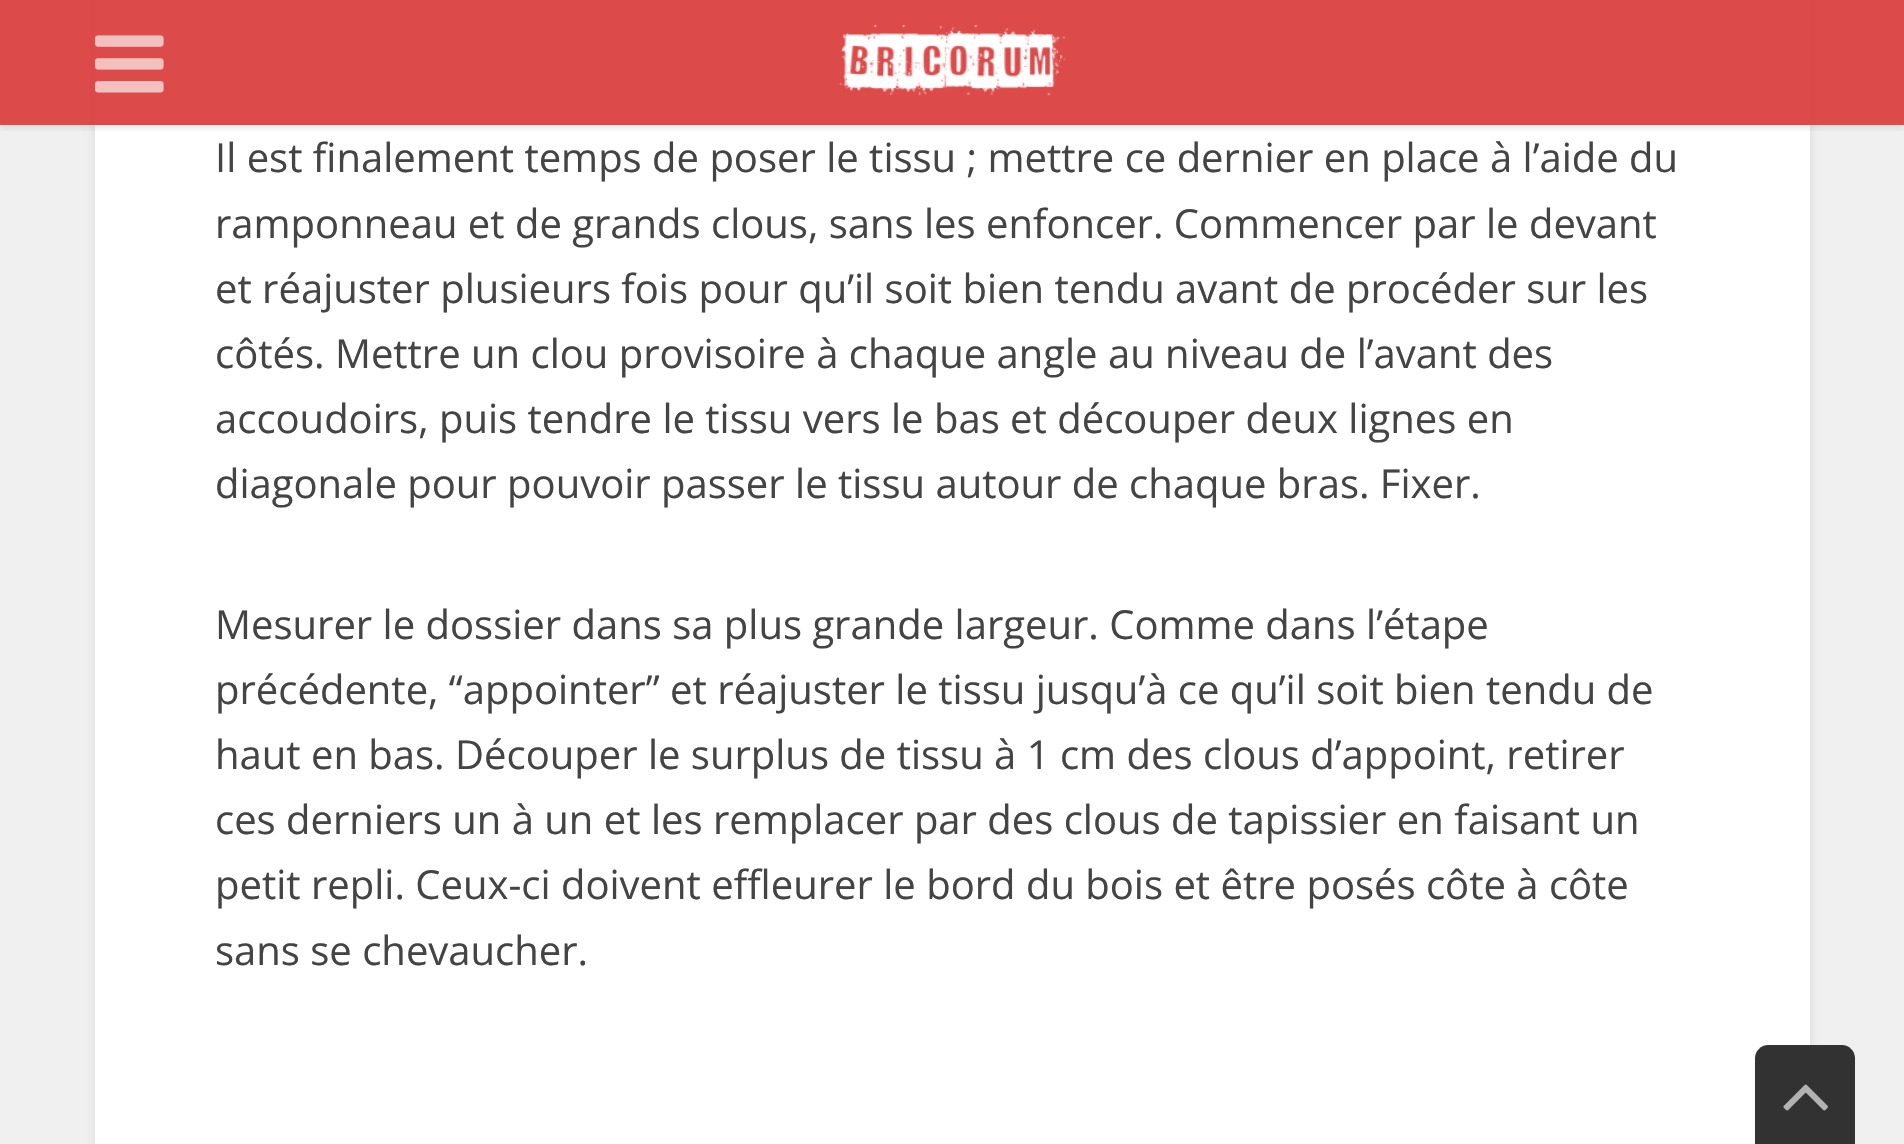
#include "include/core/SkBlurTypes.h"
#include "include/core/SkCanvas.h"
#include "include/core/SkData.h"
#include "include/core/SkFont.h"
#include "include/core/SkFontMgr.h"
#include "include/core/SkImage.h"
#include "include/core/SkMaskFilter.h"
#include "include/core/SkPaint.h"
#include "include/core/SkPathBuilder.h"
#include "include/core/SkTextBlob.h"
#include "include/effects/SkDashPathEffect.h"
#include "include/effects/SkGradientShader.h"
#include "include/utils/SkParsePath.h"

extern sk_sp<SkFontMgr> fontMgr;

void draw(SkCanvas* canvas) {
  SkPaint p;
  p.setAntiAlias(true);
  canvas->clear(SkColorSetRGB(240, 240, 240));
  p.setColor(SkColorSetARGB(26, 0, 0, 0));
  p.setMaskFilter(SkMaskFilter::MakeBlur(kNormal_SkBlurStyle, 4));
  canvas->drawRect(SkRect::MakeLTRB(95, -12, 1810, 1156), p);
  p.setMaskFilter(nullptr);
  p.setColor(SK_ColorWHITE);
  canvas->drawRect(SkRect::MakeLTRB(95, 0, 1810, 1144), p);
  canvas->save();
  canvas->clipRect(SkRect::MakeLTRB(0, 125, 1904, 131));
  p.setColor(SkColorSetARGB(26, 0, 0, 0));
  p.setMaskFilter(SkMaskFilter::MakeBlur(kNormal_SkBlurStyle, 4));
  canvas->drawRect(SkRect::MakeLTRB(0, 3, 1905, 128), p);
  p.setMaskFilter(nullptr);
  canvas->restore();
  p.setColor(SkColorSetARGB(242, 218, 64, 64));
  canvas->drawRect(SkRect::MakeLTRB(0, 0, 1904, 125), p);
  canvas->drawImageRect(SkImages::DeferredFromEncodedData(SkData::MakeFromFileName("images/1.png")), SkRect::MakeLTRB(95, 35, 164, 93), SkSamplingOptions());
  canvas->drawImageRect(SkImages::DeferredFromEncodedData(SkData::MakeFromFileName("images/2.png")), SkRect::MakeLTRB(839, 25, 1066, 96), SkSamplingOptions());
  p.setColor(SkColorSetRGB(50, 50, 50));
  canvas->drawPath(SkPathBuilder().moveTo(1768, 1045).lineTo(1842, 1045).cubicTo(1849, 1045, 1855, 1051, 1855, 1058).lineTo(1855, 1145).lineTo(1755, 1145).lineTo(1755, 1058).cubicTo(1755, 1051, 1761, 1045, 1768, 1045).close().detach(), p);
  canvas->drawImageRect(SkImages::DeferredFromEncodedData(SkData::MakeFromFileName("images/3.png")), SkRect::MakeLTRB(1783, 1084, 1828, 1111), SkSamplingOptions());
  SkFont font1(fontMgr->matchFamilyStyle("Open Sans", SkFontStyle::Normal()), 40);
  font1.setSubpixel(true);
  p.setColor(SkColorSetRGB(68, 68, 68));
  canvas->drawString("Il est finalement temps de poser le tissu ; mettre ce dernier en place à l’aide du", 215, 172, font1, p);
  canvas->drawString("ramponneau et de grands clous, sans les enfoncer. Commencer par le devant", 215, 238, font1, p);
  canvas->drawString("et réajuster plusieurs fois pour qu’il soit bien tendu avant de procéder sur les", 215, 303, font1, p);
  canvas->drawString("côtés. Mettre un clou provisoire à chaque angle au niveau de l’avant des", 215, 368, font1, p);
  canvas->drawString("accoudoirs, puis tendre le tissu vers le bas et découper deux lignes en", 215, 433, font1, p);
  canvas->drawString("diagonale pour pouvoir passer le tissu autour de chaque bras. Fixer.", 215, 498, font1, p);
  canvas->drawString("Mesurer le dossier dans sa plus grande largeur. Comme dans l’étape", 215, 639, font1, p);
  canvas->drawString("précédente, “appointer” et réajuster le tissu jusqu’à ce qu’il soit bien tendu de", 215, 704, font1, p);
  canvas->drawString("haut en bas. Découper le surplus de tissu à 1 cm des clous d’appoint, retirer", 215, 769, font1, p);
  canvas->drawString("ces derniers un à un et les remplacer par des clous de tapissier en faisant un", 215, 834, font1, p);
  canvas->drawString("petit repli. Ceux-ci doivent effleurer le bord du bois et être posés côte à côte", 215, 899, font1, p);
  canvas->drawString("sans se chevaucher.", 215, 965, font1, p);
}
